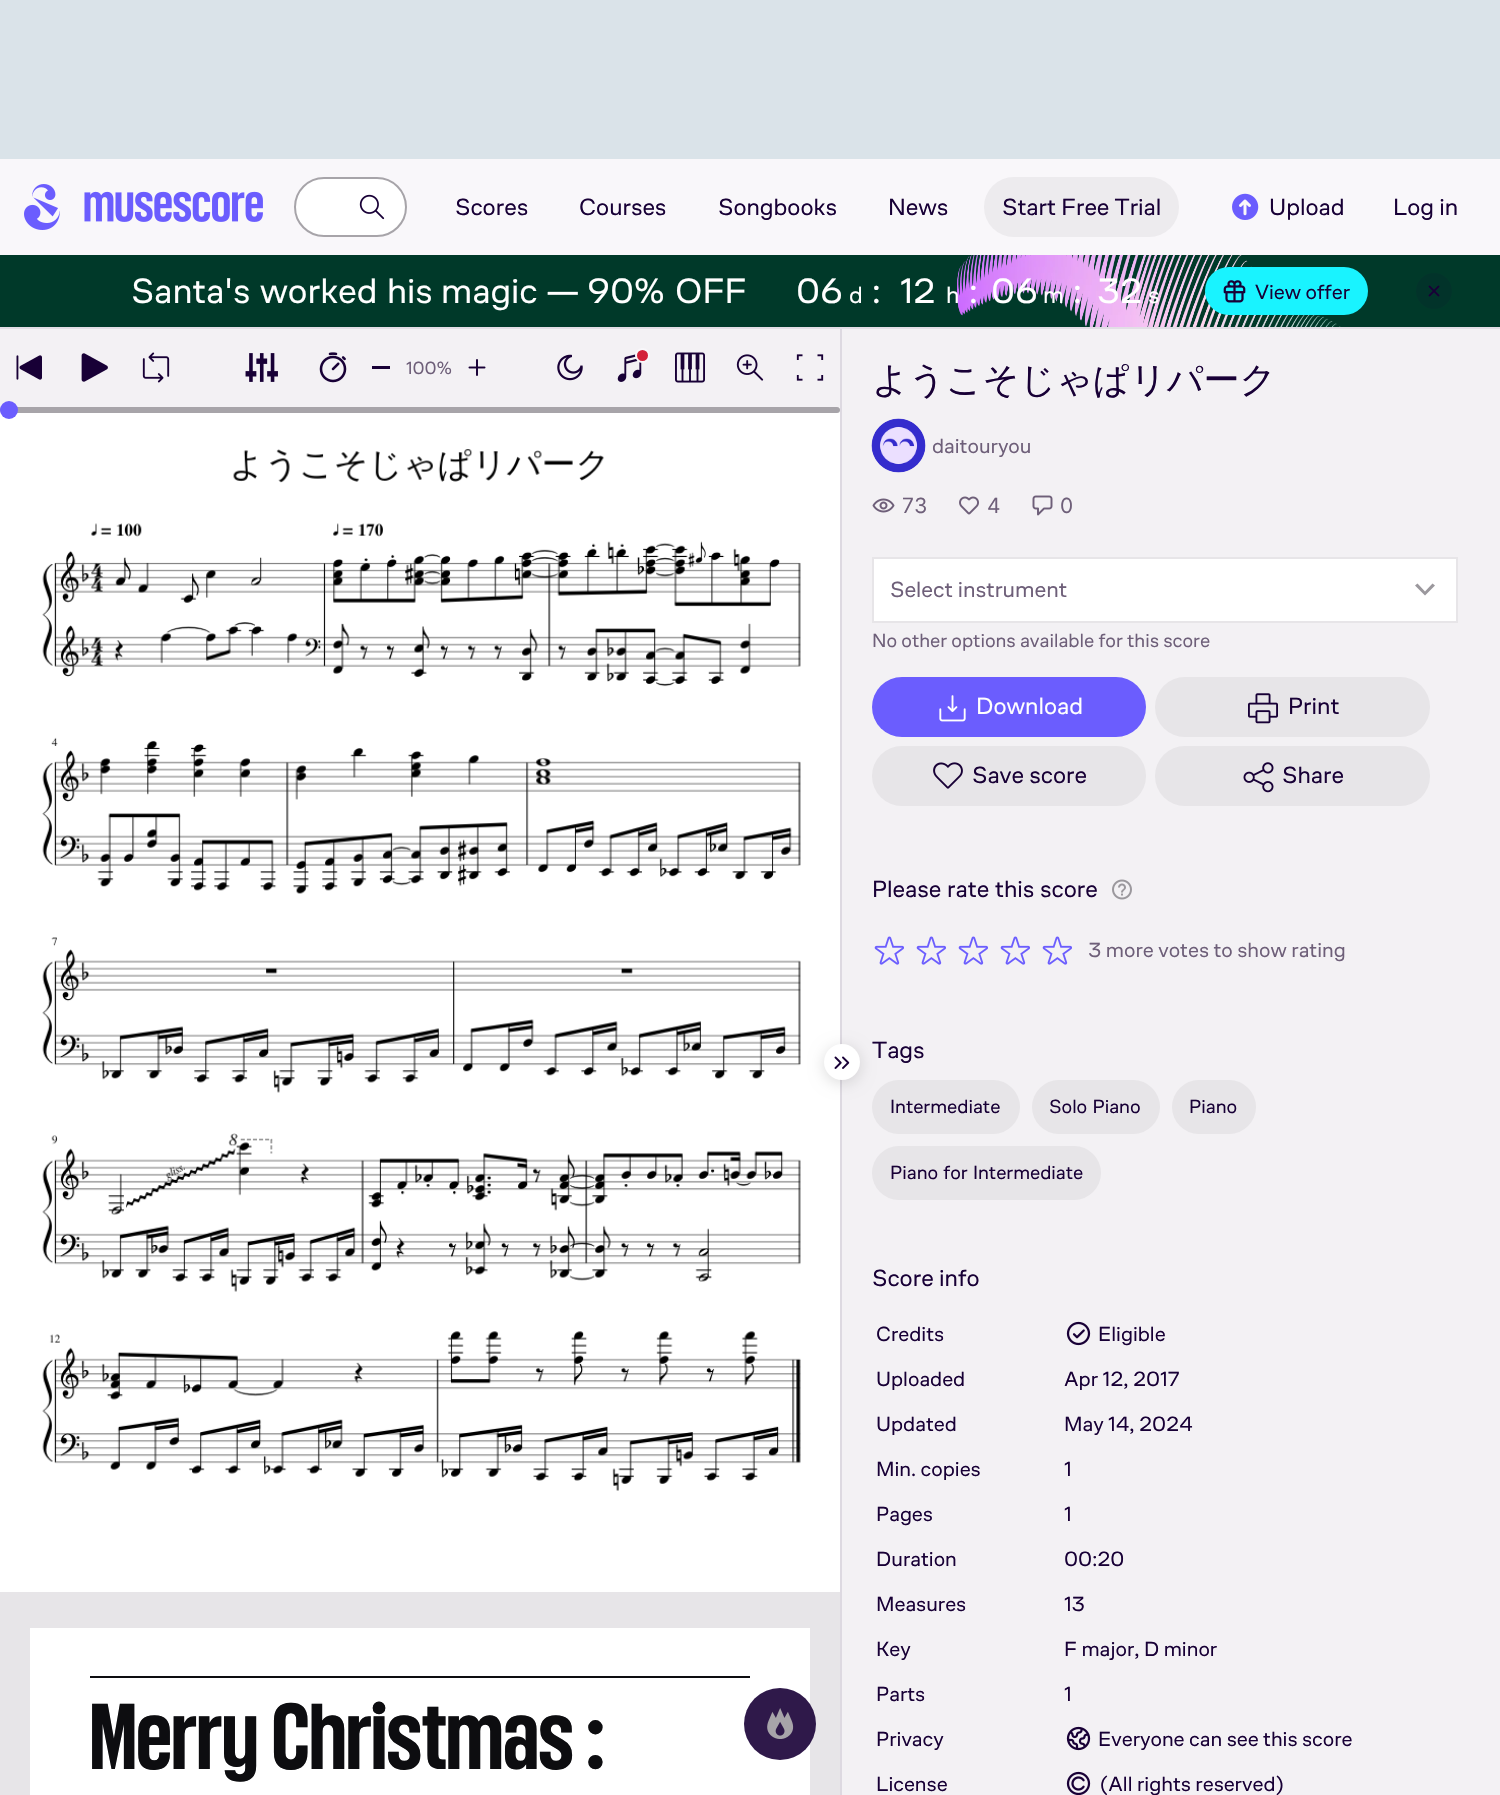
#include "include/core/SkBlurTypes.h"
#include "include/core/SkCanvas.h"
#include "include/core/SkData.h"
#include "include/core/SkFont.h"
#include "include/core/SkFontMgr.h"
#include "include/core/SkImage.h"
#include "include/core/SkMaskFilter.h"
#include "include/core/SkPaint.h"
#include "include/core/SkPathBuilder.h"
#include "include/core/SkTextBlob.h"
#include "include/effects/SkDashPathEffect.h"
#include "include/effects/SkGradientShader.h"
#include "include/utils/SkParsePath.h"

extern sk_sp<SkFontMgr> fontMgr;

void draw(SkCanvas* canvas) {
  SkPaint p;
  p.setAntiAlias(true);
  auto spacedText = [&](const char* s, float x, float y, const SkFont& font, const SkPaint& ink, float letter, float word) {
    std::vector<SkGlyphID> glyphs(font.countText(s, strlen(s), SkTextEncoding::kUTF8));
    std::vector<float> xs(glyphs.size());
    font.textToGlyphs(s, strlen(s), SkTextEncoding::kUTF8, glyphs);
    font.getXPos(glyphs, xs, x);
    float extra = 0;
    for (size_t i = 0; i < glyphs.size(); i++) {
      xs[i] += extra;
      extra += letter + word * (glyphs[i] == font.unicharToGlyph(' '));
    }
    canvas->drawTextBlob(SkTextBlob::MakeFromPosHGlyphs(glyphs, xs, y, font), 0, 0, ink);
  };
  canvas->clear(SkColorSetRGB(249, 247, 250));
  p.setColor(SkColorSetRGB(226, 222, 230));
  canvas->drawRect(SkRect::MakeLTRB(0, 327, 1500, 329), p);
  p.setColor(SkColorSetRGB(218, 227, 233));
  canvas->drawRect(SkRect::MakeLTRB(0, 0, 1500, 159), p);
  canvas->drawImageRect(SkImages::DeferredFromEncodedData(SkData::MakeFromFileName("images/1.png")), SkRect::MakeLTRB(24, 184, 263, 230), SkSamplingOptions());
  p.setColor(SK_ColorWHITE);
  canvas->drawRoundRect(SkRect::MakeLTRB(295, 178, 406, 236), 29, 29, p);
  p.setStyle(SkPaint::kStroke_Style);
  p.setStrokeWidth(2);
  p.setColor(SkColorSetRGB(167, 164, 169));
  canvas->drawRoundRect(SkRect::MakeLTRB(295, 178, 406, 236), 29, 29, p);
  canvas->drawImageRect(SkImages::DeferredFromEncodedData(SkData::MakeFromFileName("images/2.png")), SkRect::MakeLTRB(359, 194, 385, 220), SkSamplingOptions());
  p.setStyle(SkPaint::kFill_Style);
  p.setColor(SkColorSetRGB(237, 235, 238));
  canvas->drawRoundRect(SkRect::MakeLTRB(984, 177, 1179, 237), 30, 30, p);
  canvas->drawImageRect(SkImages::DeferredFromEncodedData(SkData::MakeFromFileName("images/3.png")), SkRect::MakeLTRB(1232, 193, 1259, 220), SkSamplingOptions());
  p.setColor(SkColorSetRGB(0, 57, 41));
  canvas->drawRect(SkRect::MakeLTRB(0, 255, 1500, 327), p);
  canvas->drawImageRect(SkImages::DeferredFromEncodedData(SkData::MakeFromFileName("images/4.png")), SkRect::MakeLTRB(957, 255, 1341, 327), SkSamplingOptions());
  p.setColor(SkColorSetRGB(25, 243, 255));
  canvas->drawRoundRect(SkRect::MakeLTRB(1205, 267, 1368, 315), 24, 24, p);
  canvas->drawImageRect(SkImages::DeferredFromEncodedData(SkData::MakeFromFileName("images/5.png")), SkRect::MakeLTRB(1223, 280, 1246, 303), SkSamplingOptions());
  p.setColor(SkColorSetRGB(2, 51, 42));
  canvas->drawCircle(1434, 291, 18, p);
  canvas->drawImageRect(SkImages::DeferredFromEncodedData(SkData::MakeFromFileName("images/6.png")), SkRect::MakeLTRB(1428, 285, 1440, 297), SkSamplingOptions());
  p.setColor(SkColorSetRGB(231, 229, 232));
  canvas->drawRect(SkRect::MakeLTRB(0, 1592, 840, 1795), p);
  p.setColor(SK_ColorWHITE);
  canvas->drawRect(SkRect::MakeLTRB(0, 407, 840, 1592), p);
  p.setColor(SkColorSetRGB(167, 164, 169));
  canvas->drawRoundRect(SkRect::MakeLTRB(0, 407, 840, 413), 3, 3, p);
  p.setColor(SkColorSetRGB(243, 241, 244));
  canvas->drawRect(SkRect::MakeLTRB(0, 329, 840, 407), p);
  p.setColor(SkColorSetRGB(107, 93, 254));
  canvas->drawCircle(9, 410, 9, p);
  canvas->drawImageRect(SkImages::DeferredFromEncodedData(SkData::MakeFromFileName("images/7.png")), SkRect::MakeLTRB(16, 355, 42, 380), SkSamplingOptions());
  canvas->drawImageRect(SkImages::DeferredFromEncodedData(SkData::MakeFromFileName("images/8.png")), SkRect::MakeLTRB(81, 353, 108, 382), SkSamplingOptions());
  canvas->drawImageRect(SkImages::DeferredFromEncodedData(SkData::MakeFromFileName("images/9.png")), SkRect::MakeLTRB(142, 352, 170, 383), SkSamplingOptions());
  canvas->drawImageRect(SkImages::DeferredFromEncodedData(SkData::MakeFromFileName("images/10.png")), SkRect::MakeLTRB(245, 353, 278, 382), SkSamplingOptions());
  canvas->drawImageRect(SkImages::DeferredFromEncodedData(SkData::MakeFromFileName("images/11.png")), SkRect::MakeLTRB(319, 352, 347, 383), SkSamplingOptions());
  p.setColor(SkColorSetRGB(24, 0, 54));
  canvas->drawRect(SkRect::MakeLTRB(372, 366, 390, 369), p);
  canvas->drawImageRect(SkImages::DeferredFromEncodedData(SkData::MakeFromFileName("images/12.png")), SkRect::MakeLTRB(468, 359, 486, 376), SkSamplingOptions());
  canvas->drawImageRect(SkImages::DeferredFromEncodedData(SkData::MakeFromFileName("images/13.png")), SkRect::MakeLTRB(557, 354, 583, 381), SkSamplingOptions());
  canvas->drawImageRect(SkImages::DeferredFromEncodedData(SkData::MakeFromFileName("images/14.png")), SkRect::MakeLTRB(617, 354, 642, 382), SkSamplingOptions());
  p.setColor(SkColorSetRGB(211, 33, 57));
  canvas->drawCircle(642.5f, 355.5f, 6.5f, p);
  p.setStyle(SkPaint::kStroke_Style);
  p.setColor(SkColorSetRGB(249, 247, 250));
  canvas->drawCircle(642.5f, 355.5f, 6.5f, p);
  canvas->drawImageRect(SkImages::DeferredFromEncodedData(SkData::MakeFromFileName("images/15.png")), SkRect::MakeLTRB(675, 352, 705, 383), SkSamplingOptions());
  canvas->drawImageRect(SkImages::DeferredFromEncodedData(SkData::MakeFromFileName("images/16.png")), SkRect::MakeLTRB(736, 354, 764, 381), SkSamplingOptions());
  canvas->drawImageRect(SkImages::DeferredFromEncodedData(SkData::MakeFromFileName("images/17.png")), SkRect::MakeLTRB(796, 354, 824, 381), SkSamplingOptions());
  canvas->drawImageRect(SkImages::DeferredFromEncodedData(SkData::MakeFromFileName("images/18.png")), SkRect::MakeLTRB(42, 449, 801, 1491), SkSamplingOptions());
  p.setStyle(SkPaint::kFill_Style);
  p.setColor(SK_ColorWHITE);
  canvas->drawRect(SkRect::MakeLTRB(30, 1628, 810, 1795), p);
  p.setColor(SkColorSetRGB(13, 13, 16));
  canvas->drawRect(SkRect::MakeLTRB(90, 1676, 750, 1678), p);
  p.setColor(SkColorSetARGB(230, 24, 0, 54));
  canvas->drawCircle(780, 1724, 36, p);
  canvas->drawImageRect(SkImages::DeferredFromEncodedData(SkData::MakeFromFileName("images/19.png")), SkRect::MakeLTRB(767, 1708, 794, 1739), SkSamplingOptions());
  p.setColor(SkColorSetRGB(243, 241, 244));
  canvas->drawRect(SkRect::MakeLTRB(842, 329, 1500, 1795), p);
  p.setColor(SkColorSetRGB(221, 217, 225));
  canvas->drawRect(SkRect::MakeLTRB(840, 329, 842, 1795), p);
  p.setColor(SkColorSetRGB(231, 229, 232));
  canvas->drawRoundRect(SkRect::MakeLTRB(872, 1080, 1020, 1134), 27, 27, p);
  p.setColor(SkColorSetARGB(36, 0, 0, 0));
  p.setMaskFilter(SkMaskFilter::MakeBlur(kNormal_SkBlurStyle, 7.5f));
  canvas->drawRoundRect(SkRect::MakeLTRB(824, 1047, 860, 1083), 18, 18, p);
  p.setMaskFilter(nullptr);
  p.setColor(SK_ColorWHITE);
  canvas->drawCircle(842, 1062, 18, p);
  canvas->drawImageRect(SkImages::DeferredFromEncodedData(SkData::MakeFromFileName("images/20.png")), SkRect::MakeLTRB(834, 1056, 850, 1069), SkSamplingOptions());
  canvas->drawImageRect(SkImages::DeferredFromEncodedData(SkData::MakeFromFileName("images/21.png")), SkRect::MakeLTRB(871, 418, 926, 473), SkSamplingOptions());
  canvas->drawImageRect(SkImages::DeferredFromEncodedData(SkData::MakeFromFileName("images/22.png")), SkRect::MakeLTRB(872, 498, 895, 513), SkSamplingOptions());
  canvas->drawImageRect(SkImages::DeferredFromEncodedData(SkData::MakeFromFileName("images/23.png")), SkRect::MakeLTRB(959, 496, 979, 515), SkSamplingOptions());
  canvas->drawImageRect(SkImages::DeferredFromEncodedData(SkData::MakeFromFileName("images/24.png")), SkRect::MakeLTRB(1032, 495, 1053, 516), SkSamplingOptions());
  canvas->drawRect(SkRect::MakeLTRB(873, 558, 1457, 622), p);
  p.setStyle(SkPaint::kStroke_Style);
  p.setColor(SkColorSetRGB(231, 229, 232));
  canvas->drawRect(SkRect::MakeLTRB(873, 558, 1457, 622), p);
  p.setStyle(SkPaint::kFill_Style);
  p.setColor(SkColorSetRGB(155, 152, 157));
  canvas->drawPath(SkPathBuilder(SkPathFillType::kEvenOdd).moveTo(1435, 585.5f).lineTo(1425, 595.5f).lineTo(1415, 585.5f).lineTo(1417.5f, 583.5f).lineTo(1425, 591.5f).lineTo(1432.5f, 583.5f).close().detach(), p);
  p.setColor(SkColorSetRGB(107, 93, 254));
  canvas->drawRoundRect(SkRect::MakeLTRB(872, 677, 1146, 737), 30, 30, p);
  canvas->drawImageRect(SkImages::DeferredFromEncodedData(SkData::MakeFromFileName("images/25.png")), SkRect::MakeLTRB(939, 695, 966, 722), SkSamplingOptions());
  p.setColor(SkColorSetRGB(231, 229, 232));
  canvas->drawRoundRect(SkRect::MakeLTRB(1155, 677, 1430, 737), 30, 30, p);
  canvas->drawImageRect(SkImages::DeferredFromEncodedData(SkData::MakeFromFileName("images/26.png")), SkRect::MakeLTRB(1248, 693, 1278, 724), SkSamplingOptions());
  canvas->drawRoundRect(SkRect::MakeLTRB(872, 746, 1146, 806), 30, 30, p);
  canvas->drawImageRect(SkImages::DeferredFromEncodedData(SkData::MakeFromFileName("images/27.png")), SkRect::MakeLTRB(933, 762, 963, 789), SkSamplingOptions());
  canvas->drawRoundRect(SkRect::MakeLTRB(1155, 746, 1430, 806), 30, 30, p);
  canvas->drawImageRect(SkImages::DeferredFromEncodedData(SkData::MakeFromFileName("images/28.png")), SkRect::MakeLTRB(1243, 762, 1274, 793), SkSamplingOptions());
  canvas->drawImageRect(SkImages::DeferredFromEncodedData(SkData::MakeFromFileName("images/29.png")), SkRect::MakeLTRB(1112, 879, 1132, 900), SkSamplingOptions());
  canvas->drawImageRect(SkImages::DeferredFromEncodedData(SkData::MakeFromFileName("images/30.png")), SkRect::MakeLTRB(874, 936, 904, 965), SkSamplingOptions());
  canvas->drawImageRect(SkImages::DeferredFromEncodedData(SkData::MakeFromFileName("images/30.png")), SkRect::MakeLTRB(916, 936, 946, 965), SkSamplingOptions());
  canvas->drawImageRect(SkImages::DeferredFromEncodedData(SkData::MakeFromFileName("images/30.png")), SkRect::MakeLTRB(958, 936, 988, 965), SkSamplingOptions());
  canvas->drawImageRect(SkImages::DeferredFromEncodedData(SkData::MakeFromFileName("images/30.png")), SkRect::MakeLTRB(1000, 936, 1030, 965), SkSamplingOptions());
  canvas->drawImageRect(SkImages::DeferredFromEncodedData(SkData::MakeFromFileName("images/30.png")), SkRect::MakeLTRB(1042, 936, 1072, 965), SkSamplingOptions());
  canvas->drawRoundRect(SkRect::MakeLTRB(1032, 1080, 1160, 1134), 27, 27, p);
  canvas->drawRoundRect(SkRect::MakeLTRB(1172, 1080, 1256, 1134), 27, 27, p);
  canvas->drawRoundRect(SkRect::MakeLTRB(872, 1146, 1101, 1200), 27, 27, p);
  canvas->drawImageRect(SkImages::DeferredFromEncodedData(SkData::MakeFromFileName("images/31.png")), SkRect::MakeLTRB(1066, 1321, 1091, 1346), SkSamplingOptions());
  canvas->drawImageRect(SkImages::DeferredFromEncodedData(SkData::MakeFromFileName("images/32.png")), SkRect::MakeLTRB(1066, 1726, 1091, 1751), SkSamplingOptions());
  canvas->drawImageRect(SkImages::DeferredFromEncodedData(SkData::MakeFromFileName("images/33.png")), SkRect::MakeLTRB(1066, 1771, 1091, 1795), SkSamplingOptions());
  SkFont font1(fontMgr->matchFamilyStyle("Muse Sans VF", SkFontStyle::Normal()), 24);
  font1.setSubpixel(true);
  p.setColor(SkColorSetRGB(24, 0, 54));
  canvas->drawString("Scores", 455, 215, font1, p);
  canvas->drawString("Courses", 579, 215, font1, p);
  canvas->drawString("Songbooks", 718, 215, font1, p);
  canvas->drawString("News", 888, 215, font1, p);
  canvas->drawString("Start Free Trial", 1002, 215, font1, p);
  canvas->drawString("Upload", 1269, 215, font1, p);
  canvas->drawString("Log in", 1393, 215, font1, p);
  SkFont font2(fontMgr->matchFamilyStyle("Muse Sans VF", SkFontStyle::Normal()), 36);
  font2.setSubpixel(true);
  p.setColor(SK_ColorWHITE);
  canvas->drawString("Santa's", 131, 303, font2, p);
  canvas->drawString("worked", 260, 303, font2, p);
  canvas->drawString("his", 387, 303, font2, p);
  canvas->drawString("magic", 441, 303, font2, p);
  canvas->drawString("—", 546, 303, font2, p);
  canvas->drawString("90%", 587, 303, font2, p);
  canvas->drawString("OFF", 675, 303, font2, p);
  canvas->drawString("06", 796, 303, font2, p);
  canvas->drawString("d", 849, 303, font1, p);
  canvas->drawString(":", 872, 303, font2, p);
  canvas->drawString("12", 900, 303, font2, p);
  canvas->drawString("h", 946, 303, font1, p);
  canvas->drawString(":", 969, 303, font2, p);
  canvas->drawString("06", 991, 303, font2, p);
  canvas->drawString("m", 1043, 303, font1, p);
  canvas->drawString(":", 1073, 303, font2, p);
  canvas->drawString("32", 1097, 303, font2, p);
  canvas->drawString("s", 1148, 303, font1, p);
  SkFont font3(fontMgr->matchFamilyStyle("Muse Sans VF", SkFontStyle::Normal()), 21);
  font3.setSubpixel(true);
  p.setColor(SkColorSetRGB(24, 0, 54));
  canvas->drawString("View offer", 1255, 299, font3, p);
  SkFont font4(fontMgr->matchFamilyStyle("Muse Sans VF", SkFontStyle::Normal()), 18);
  font4.setSubpixel(true);
  p.setColor(SkColorSetRGB(110, 95, 121));
  canvas->drawString("100%", 406, 374, font4, p);
  SkFont font5(fontMgr->matchFamilyStyle("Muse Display", SkFontStyle::Normal()), 96);
  font5.setSubpixel(true);
  p.setColor(SkColorSetRGB(13, 13, 16));
  canvas->drawString("Merry Christmas :", 90, 1769, font5, p);
  SkFont font6(fontMgr->matchFamilyStyle("WenQuanYi Zen Hei", SkFontStyle(500, SkFontStyle::kNormal_Width, SkFontStyle::kUpright_Slant)), 36);
  font6.setSubpixel(true);
  p.setColor(SkColorSetRGB(24, 0, 54));
  canvas->drawString("ようこそじゃぱリパーク", 872, 392, font6, p);
  p.setColor(SkColorSetRGB(110, 95, 121));
  canvas->drawString("daitouryou", 932, 453, font3, p);
  SkFont font7(fontMgr->matchFamilyStyle("Inter", SkFontStyle::Normal()), 21);
  font7.setSubpixel(true);
  canvas->drawString("73", 902, 513, font7, p);
  canvas->drawString("4", 987, 513, font7, p);
  canvas->drawString("0", 1060, 513, font7, p);
  SkFont font8(fontMgr->matchFamilyStyle("Muse Sans VF", SkFontStyle::Normal()), 22.5f);
  font8.setSubpixel(true);
  canvas->drawString("Select instrument", 890, 597, font8, p);
  SkFont font9(fontMgr->matchFamilyStyle("Muse Sans VF", SkFontStyle::Normal()), 19.5f);
  font9.setSubpixel(true);
  canvas->drawString("No other options available for this score", 872, 647, font9, p);
  p.setColor(SK_ColorWHITE);
  canvas->drawString("Download", 976, 714, font1, p);
  p.setColor(SkColorSetRGB(24, 0, 54));
  canvas->drawString("Print", 1288, 714, font1, p);
  canvas->drawString("Save score", 972, 783, font1, p);
  canvas->drawString("Share", 1282, 783, font1, p);
  canvas->drawString("Please", 872, 897, font1, p);
  canvas->drawString("rate", 947, 897, font1, p);
  canvas->drawString("this", 995, 897, font1, p);
  canvas->drawString("score", 1040, 897, font1, p);
  p.setColor(SkColorSetRGB(110, 95, 121));
  canvas->drawString("3 more votes to show rating", 1088, 957, font3, p);
  p.setColor(SkColorSetRGB(24, 0, 54));
  canvas->drawString("Tags", 872, 1058, font1, p);
  canvas->drawString("Intermediate", 890, 1113, font9, p);
  spacedText("Solo Piano", 1049, 1113, font9, p, 0, 1);
  canvas->drawString("Piano", 1189, 1113, font9, p);
  spacedText("Piano for Intermediate", 890, 1179, font9, p, 0, 1);
  canvas->drawString("Score", 872, 1286, font1, p);
  canvas->drawString("info", 939, 1286, font1, p);
  canvas->drawString("Credits", 876, 1341, font3, p);
  canvas->drawString("Eligible", 1098, 1341, font3, p);
  canvas->drawString("Uploaded", 876, 1386, font3, p);
  canvas->drawString("Apr 12, 2017", 1064, 1386, font3, p);
  canvas->drawString("Updated", 876, 1431, font3, p);
  canvas->drawString("May 14, 2024", 1064, 1431, font3, p);
  canvas->drawString("Min. copies", 876, 1476, font3, p);
  canvas->drawString("1", 1064, 1476, font3, p);
  canvas->drawString("Pages", 876, 1521, font3, p);
  canvas->drawString("1", 1064, 1521, font3, p);
  canvas->drawString("Duration", 876, 1566, font3, p);
  canvas->drawString("00:20", 1064, 1566, font3, p);
  canvas->drawString("Measures", 876, 1611, font3, p);
  canvas->drawString("13", 1064, 1611, font3, p);
  canvas->drawString("Key", 876, 1656, font3, p);
  canvas->drawString("F major, D minor", 1064, 1656, font3, p);
  canvas->drawString("Parts", 876, 1701, font3, p);
  canvas->drawString("1", 1064, 1701, font3, p);
  canvas->drawString("Privacy", 876, 1746, font3, p);
  canvas->drawString("Everyone can see this score", 1098, 1746, font3, p);
  canvas->drawString("License", 876, 1791, font3, p);
  canvas->drawString("(All rights reserved)", 1100, 1791, font3, p);
}
